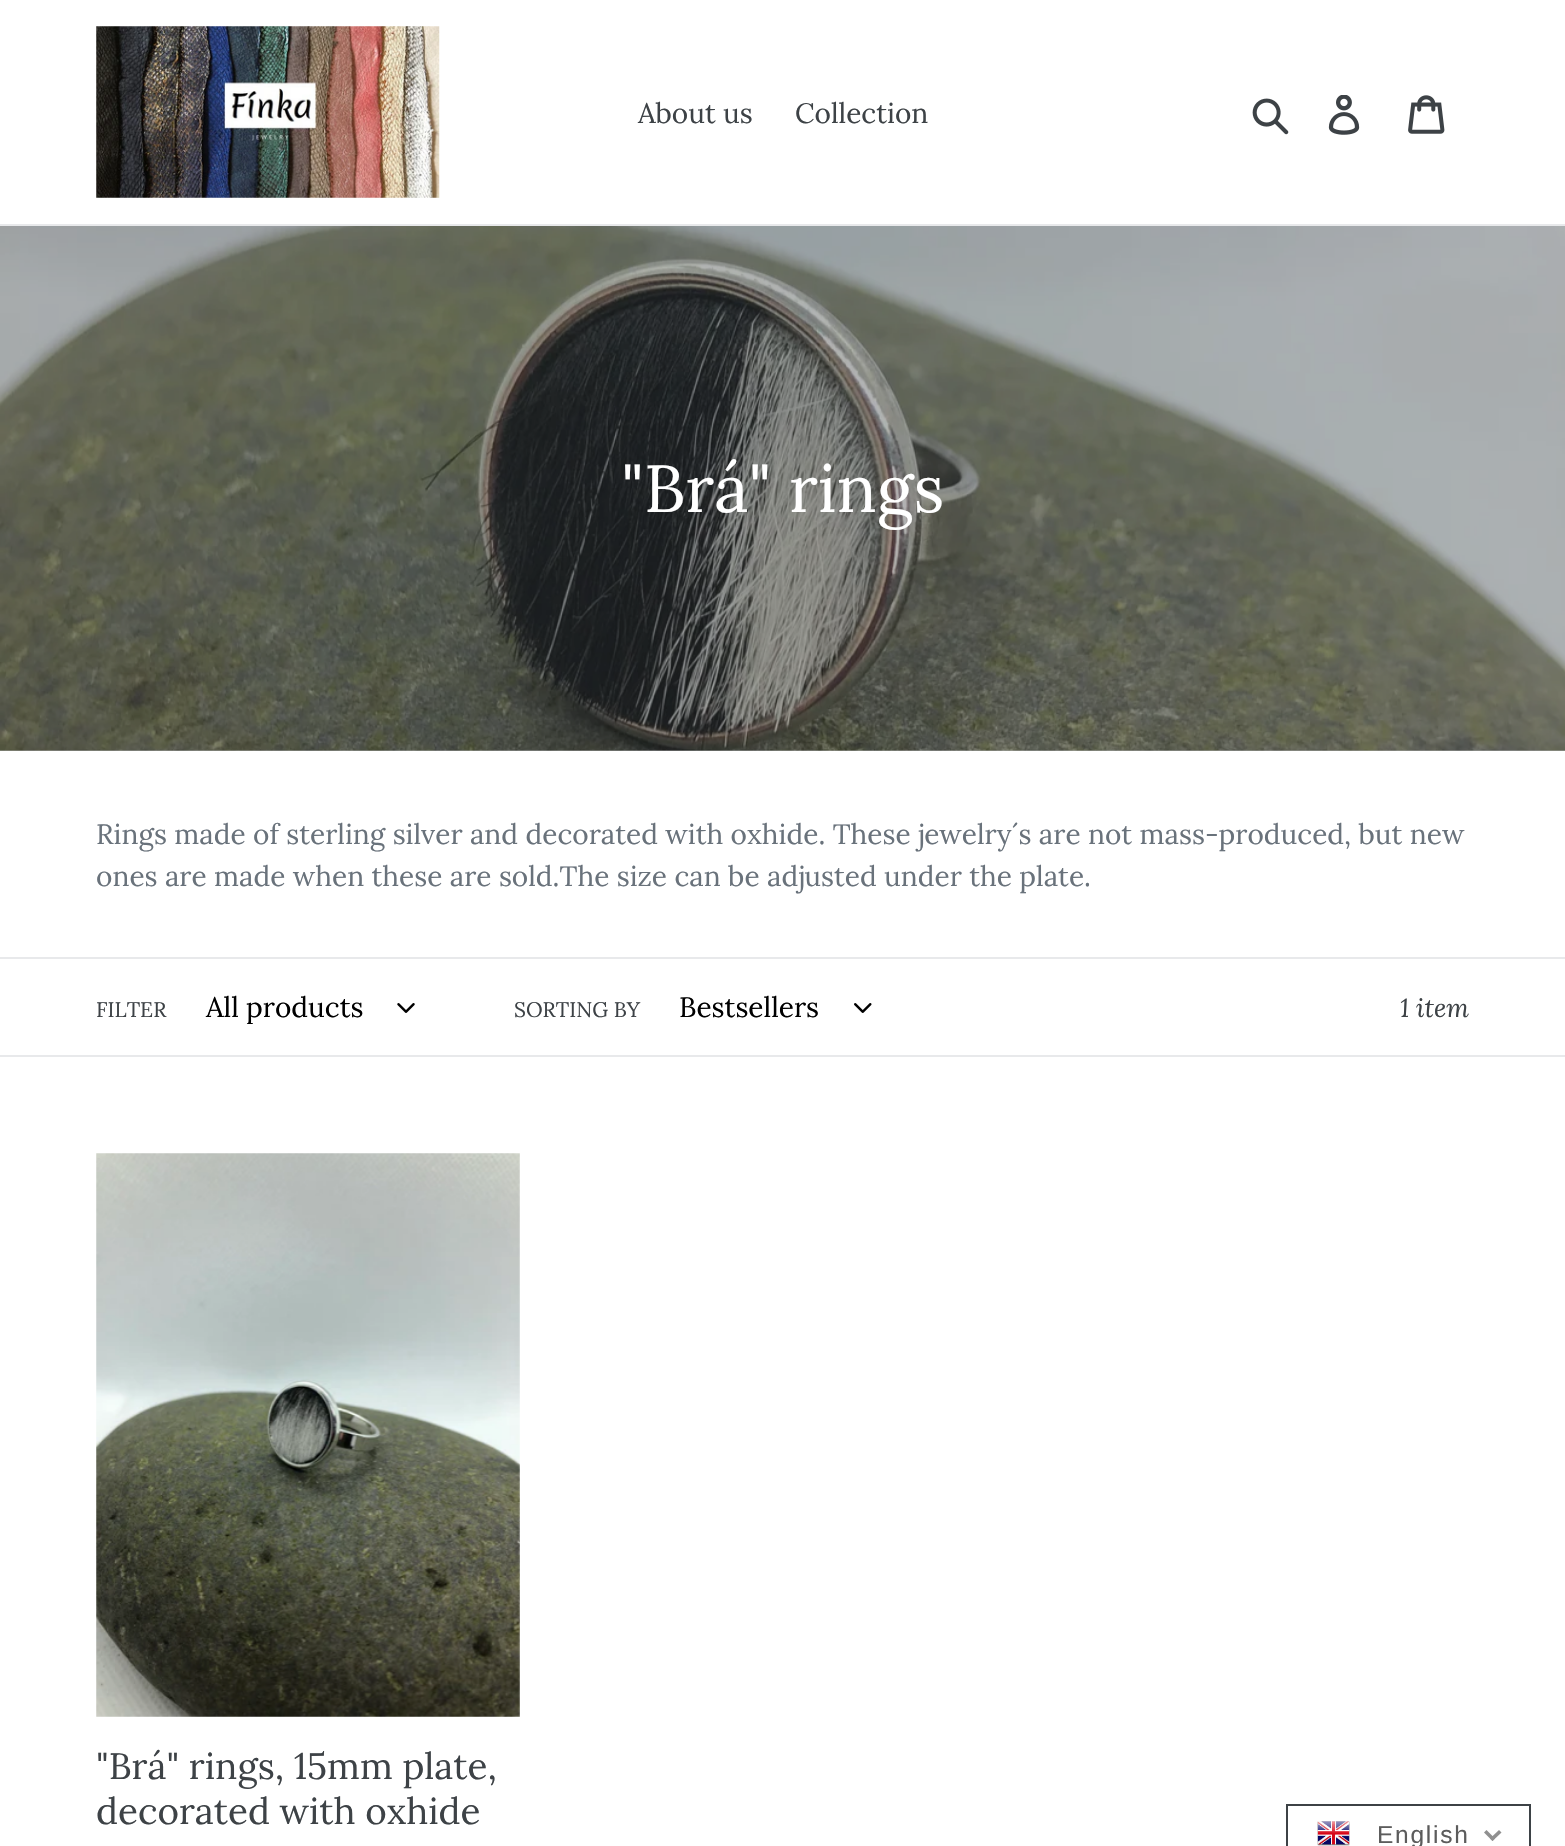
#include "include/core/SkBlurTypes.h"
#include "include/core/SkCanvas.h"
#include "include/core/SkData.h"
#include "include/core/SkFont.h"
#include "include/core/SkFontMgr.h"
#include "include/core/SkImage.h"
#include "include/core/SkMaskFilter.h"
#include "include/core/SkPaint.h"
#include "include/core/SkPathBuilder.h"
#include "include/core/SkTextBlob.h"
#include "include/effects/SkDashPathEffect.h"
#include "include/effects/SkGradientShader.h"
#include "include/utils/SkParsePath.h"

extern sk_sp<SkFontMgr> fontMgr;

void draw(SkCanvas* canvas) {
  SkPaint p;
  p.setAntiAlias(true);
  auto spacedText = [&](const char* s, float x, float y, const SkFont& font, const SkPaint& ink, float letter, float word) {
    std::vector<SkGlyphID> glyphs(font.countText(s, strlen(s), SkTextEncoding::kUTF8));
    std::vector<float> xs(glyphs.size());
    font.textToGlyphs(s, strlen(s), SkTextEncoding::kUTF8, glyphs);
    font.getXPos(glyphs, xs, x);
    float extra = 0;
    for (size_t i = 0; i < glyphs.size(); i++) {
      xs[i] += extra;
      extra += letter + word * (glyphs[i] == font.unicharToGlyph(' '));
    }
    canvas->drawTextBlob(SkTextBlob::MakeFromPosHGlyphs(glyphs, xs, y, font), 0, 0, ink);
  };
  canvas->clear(SK_ColorWHITE);
  p.setColor(SkColorSetRGB(177, 179, 181));
  canvas->drawRect(SkRect::MakeLTRB(0, 750, 1565, 751), p);
  p.setColor(SkColorSetRGB(232, 233, 235));
  canvas->drawRect(SkRect::MakeLTRB(0, 224, 1565, 226), p);
  canvas->drawImageRect(SkImages::DeferredFromEncodedData(SkData::MakeFromFileName("images/1.png")), SkRect::MakeLTRB(96, 26, 440, 198), SkSamplingOptions());
  canvas->drawImageRect(SkImages::DeferredFromEncodedData(SkData::MakeFromFileName("images/2.png")), SkRect::MakeLTRB(1252, 98, 1289, 135), SkSamplingOptions());
  canvas->drawImageRect(SkImages::DeferredFromEncodedData(SkData::MakeFromFileName("images/3.png")), SkRect::MakeLTRB(1328, 95, 1360, 135), SkSamplingOptions());
  canvas->drawImageRect(SkImages::DeferredFromEncodedData(SkData::MakeFromFileName("images/4.png")), SkRect::MakeLTRB(1408, 95, 1445, 134), SkSamplingOptions());
  canvas->drawImageRect(SkImages::DeferredFromEncodedData(SkData::MakeFromFileName("images/5.png")), SkRect::MakeLTRB(0, 226, 1565, 751), SkSamplingOptions());
  canvas->drawRect(SkRect::MakeLTRB(0, 957, 1565, 959), p);
  canvas->drawRect(SkRect::MakeLTRB(0, 1055, 1565, 1057), p);
  canvas->drawImageRect(SkImages::DeferredFromEncodedData(SkData::MakeFromFileName("images/6.png")), SkRect::MakeLTRB(397, 1003, 415, 1013), SkSamplingOptions());
  canvas->drawImageRect(SkImages::DeferredFromEncodedData(SkData::MakeFromFileName("images/7.png")), SkRect::MakeLTRB(854, 1003, 872, 1013), SkSamplingOptions());
  canvas->drawImageRect(SkImages::DeferredFromEncodedData(SkData::MakeFromFileName("images/8.png")), SkRect::MakeLTRB(96, 1153, 520, 1717), SkSamplingOptions());
  p.setStyle(SkPaint::kStroke_Style);
  p.setStrokeWidth(2);
  p.setColor(SkColorSetRGB(61, 66, 70));
  canvas->drawRect(SkRect::MakeLTRB(1287, 1805, 1530, 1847), p);
  canvas->drawImageRect(SkImages::DeferredFromEncodedData(SkData::MakeFromFileName("images/9.png")), SkRect::MakeLTRB(1317, 1821, 1350, 1846), SkSamplingOptions());
  p.setStyle(SkPaint::kFill_Style);
  p.setColor(SkColorSetRGB(144, 144, 144));
  canvas->drawPath(SkPathBuilder().moveTo(1499, 1830).lineTo(1501.5f, 1832.5f).lineTo(1492.5f, 1841).lineTo(1490, 1838.5f).close().detach(), p);
  canvas->drawPath(SkPathBuilder().moveTo(1486.5f, 1830).lineTo(1495, 1838.5f).lineTo(1492.5f, 1841).lineTo(1484, 1832.5f).close().detach(), p);
  SkFont font1(fontMgr->matchFamilyStyle("Lora", SkFontStyle::Normal()), 28);
  font1.setSubpixel(true);
  p.setColor(SkColorSetRGB(61, 66, 70));
  canvas->drawString("About us", 638, 123, font1, p);
  canvas->drawString("Collection", 795, 123, font1, p);
  SkFont font2(fontMgr->matchFamilyStyle("Lora", SkFontStyle::Normal()), 66.5f);
  font2.setSubpixel(true);
  p.setColor(SK_ColorWHITE);
  canvas->drawString("\"Brá\" rings", 621, 512, font2, p);
  p.setColor(SkColorSetRGB(105, 114, 123));
  canvas->drawString("Rings made of sterling silver and decorated with oxhide. These jewelry´s are not mass-produced, but new", 96, 844, font1, p);
  canvas->drawString("ones are made when these are sold.The size can be adjusted under the plate.", 96, 886, font1, p);
  SkFont font3(fontMgr->matchFamilyStyle("Lora", SkFontStyle::Normal()), 21);
  font3.setSubpixel(true);
  p.setColor(SkColorSetRGB(61, 66, 70));
  canvas->drawString("FILTER", 96, 1017, font3, p);
  canvas->save();
  canvas->clipRect(SkRect::MakeLTRB(205, 991, 380, 1024));
  p.setColor(SK_ColorBLACK);
  canvas->drawString("All products", 206, 1017, font1, p);
  canvas->restore();
  p.setColor(SkColorSetRGB(61, 66, 70));
  canvas->drawString("SORTING BY", 514, 1017, font3, p);
  p.setColor(SK_ColorBLACK);
  canvas->drawString("Bestsellers", 679, 1017, font1, p);
  SkFont font4(fontMgr->matchFamilyStyle("Lora", SkFontStyle::Italic()), 26);
  font4.setSubpixel(true);
  p.setColor(SkColorSetRGB(61, 66, 70));
  canvas->drawString("1 item", 1400, 1017, font4, p);
  SkFont font5(fontMgr->matchFamilyStyle("Lora", SkFontStyle::Normal()), 36.75f);
  font5.setSubpixel(true);
  canvas->drawString("\"Brá\" rings, 15mm plate,", 96, 1779, font5, p);
  canvas->drawString("decorated with oxhide", 96, 1824, font5, p);
  SkFont font6(fontMgr->matchFamilyStyle("Liberation Sans", SkFontStyle::Normal()), 24.5f);
  font6.setSubpixel(true);
  p.setColor(SkColorSetRGB(92, 92, 92));
  spacedText("English", 1377, 1843, font6, p, 1.75f, 0);
}
